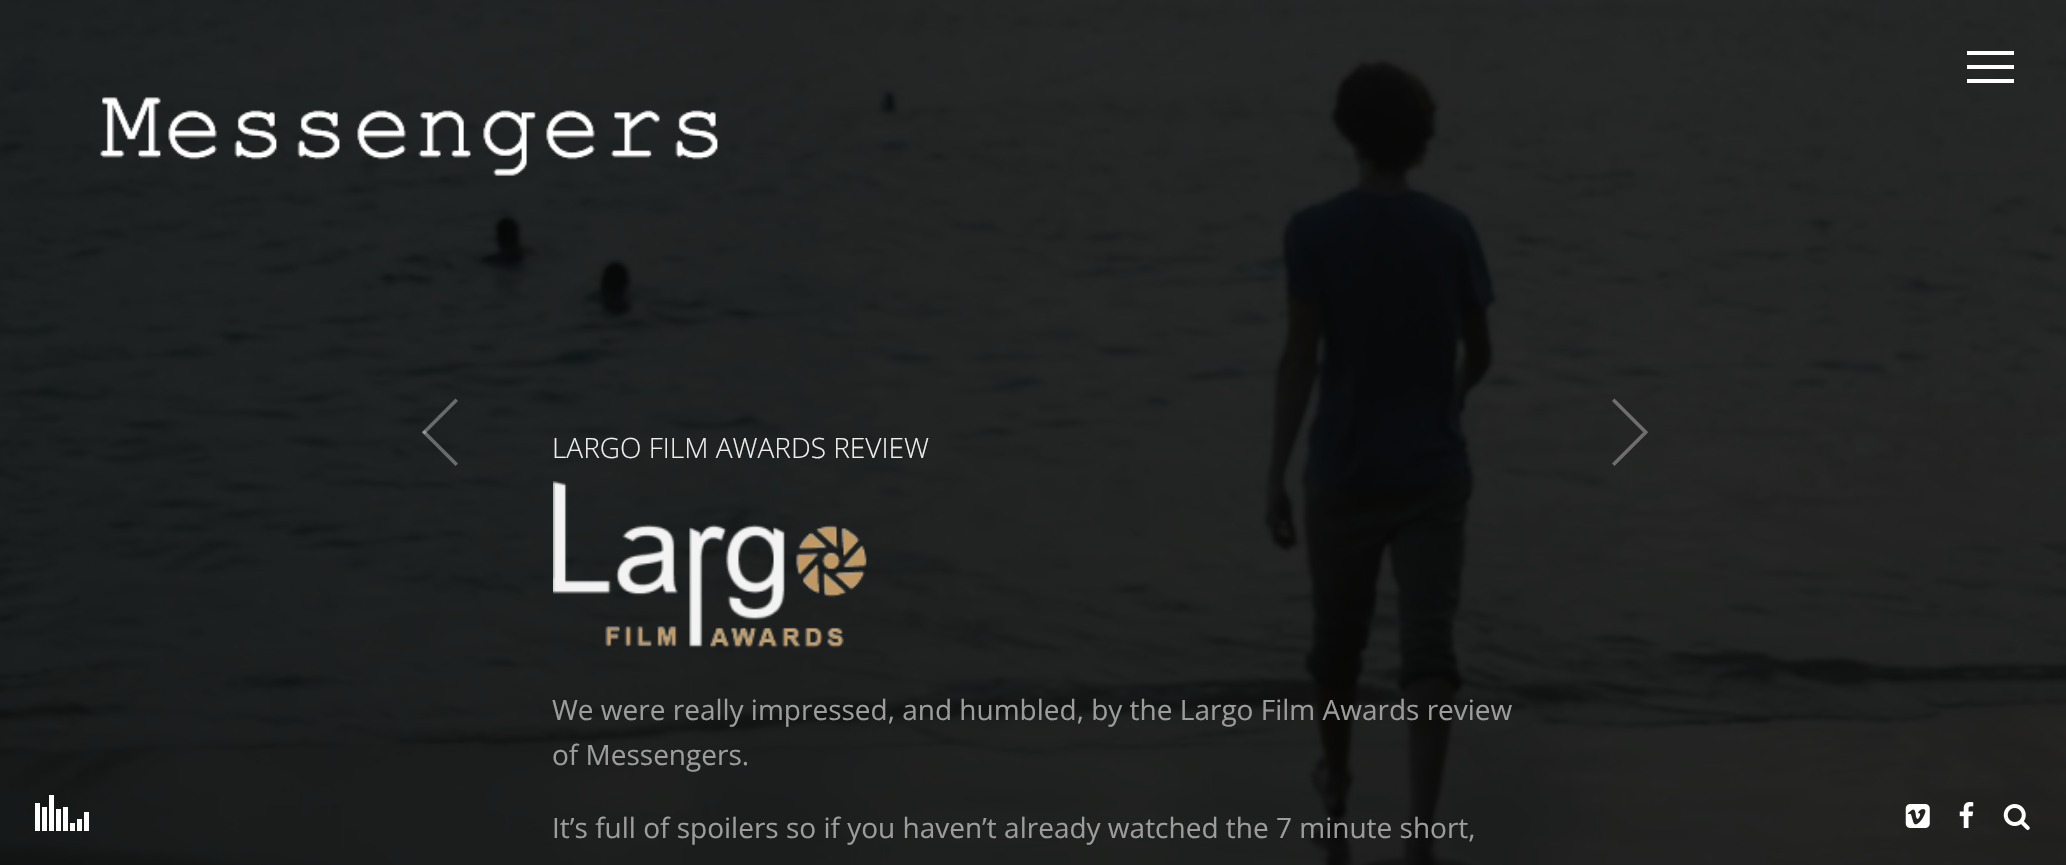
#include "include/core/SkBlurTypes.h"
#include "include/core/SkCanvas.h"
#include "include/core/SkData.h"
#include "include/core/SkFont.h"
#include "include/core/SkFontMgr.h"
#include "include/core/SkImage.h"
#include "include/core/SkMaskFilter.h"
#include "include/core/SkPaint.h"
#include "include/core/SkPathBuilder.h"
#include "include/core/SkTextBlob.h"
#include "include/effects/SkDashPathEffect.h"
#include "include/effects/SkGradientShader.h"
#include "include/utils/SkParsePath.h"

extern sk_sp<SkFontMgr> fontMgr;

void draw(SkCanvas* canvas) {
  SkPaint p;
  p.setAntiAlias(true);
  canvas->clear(SK_ColorWHITE);
  canvas->drawImageRect(SkImages::DeferredFromEncodedData(SkData::MakeFromFileName("images/1.png")), SkRect::MakeLTRB(0, 0, 2066, 865), SkSamplingOptions());
  p.setColor(SK_ColorWHITE);
  canvas->drawRect(SkRect::MakeLTRB(1967, 65, 2014, 69), p);
  canvas->drawRect(SkRect::MakeLTRB(1967, 51, 2014, 55), p);
  canvas->drawRect(SkRect::MakeLTRB(1967, 79, 2014, 83), p);
  canvas->drawImageRect(SkImages::DeferredFromEncodedData(SkData::MakeFromFileName("images/2.png")), SkRect::MakeLTRB(100, 97, 718, 176), SkSamplingOptions());
  canvas->drawRect(SkRect::MakeLTRB(35, 803, 40, 831), p);
  canvas->drawRect(SkRect::MakeLTRB(42, 807, 47, 831), p);
  canvas->drawRect(SkRect::MakeLTRB(49, 795, 54, 831), p);
  canvas->drawRect(SkRect::MakeLTRB(56, 809, 61, 831), p);
  canvas->drawRect(SkRect::MakeLTRB(63, 807, 68, 831), p);
  canvas->drawRect(SkRect::MakeLTRB(70, 823, 75, 831), p);
  canvas->drawRect(SkRect::MakeLTRB(77, 819, 82, 831), p);
  canvas->drawRect(SkRect::MakeLTRB(84, 812, 89, 831), p);
  p.setColor(SkColorSetARGB(89, 243, 243, 243));
  canvas->drawPath(SkPathBuilder().moveTo(424.5f, 434.5f).lineTo(422, 432).lineTo(455.5f, 398.5f).lineTo(458, 401).close().detach(), p);
  canvas->drawPath(SkPathBuilder().moveTo(422, 432.5f).lineTo(424.5f, 430).lineTo(458, 463.5f).lineTo(455.5f, 466).close().detach(), p);
  canvas->drawImageRect(SkImages::DeferredFromEncodedData(SkData::MakeFromFileName("images/3.png")), SkRect::MakeLTRB(553, 481, 867, 648), SkSamplingOptions());
  p.setColor(SkColorSetRGB(109, 110, 109));
  canvas->drawPath(SkPathBuilder().moveTo(1648, 432).lineTo(1645.5f, 434.5f).lineTo(1612, 401).lineTo(1614.5f, 398.5f).close().detach(), p);
  canvas->drawPath(SkPathBuilder().moveTo(1645.5f, 430).lineTo(1648, 432.5f).lineTo(1614.5f, 466).lineTo(1612, 463.5f).close().detach(), p);
  canvas->drawImageRect(SkImages::DeferredFromEncodedData(SkData::MakeFromFileName("images/4.png")), SkRect::MakeLTRB(1905, 804, 1930, 828), SkSamplingOptions());
  canvas->drawImageRect(SkImages::DeferredFromEncodedData(SkData::MakeFromFileName("images/5.png")), SkRect::MakeLTRB(1959, 802, 1974, 828), SkSamplingOptions());
  canvas->drawImageRect(SkImages::DeferredFromEncodedData(SkData::MakeFromFileName("images/6.png")), SkRect::MakeLTRB(2003, 804, 2030, 830), SkSamplingOptions());
  SkFont font1(fontMgr->matchFamilyStyle("Open Sans", SkFontStyle(300, SkFontStyle::kNormal_Width, SkFontStyle::kUpright_Slant)), 28);
  font1.setSubpixel(true);
  p.setColor(SkColorSetRGB(238, 238, 238));
  canvas->drawString("LARGO FILM AWARDS REVIEW", 552, 458, font1, p);
  SkFont font2(fontMgr->matchFamilyStyle("Open Sans", SkFontStyle::Normal()), 28);
  font2.setSubpixel(true);
  p.setColor(SkColorSetRGB(156, 156, 156));
  canvas->drawString("We were really impressed, and humbled, by the Largo Film Awards review", 552, 720, font2, p);
  canvas->drawString("of Messengers.", 552, 765, font2, p);
  canvas->drawString("It’s full of spoilers so if you haven’t already watched the 7 minute short,", 552, 838, font2, p);
}
